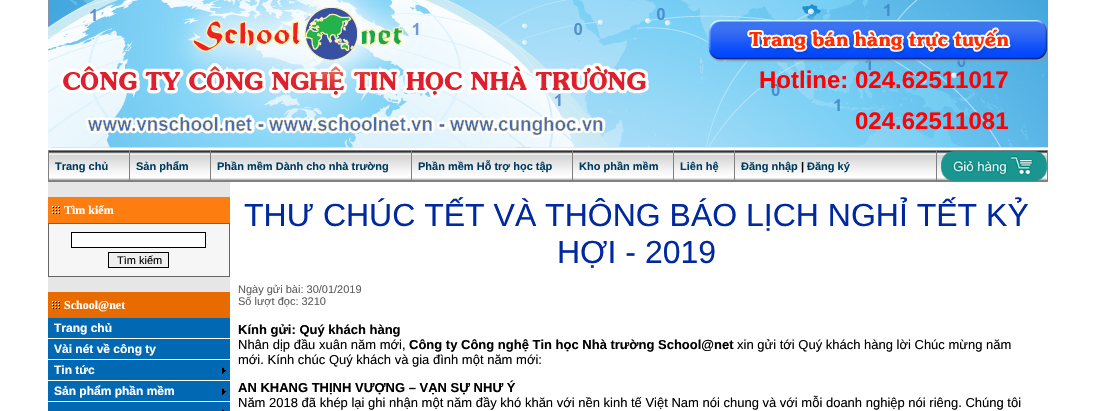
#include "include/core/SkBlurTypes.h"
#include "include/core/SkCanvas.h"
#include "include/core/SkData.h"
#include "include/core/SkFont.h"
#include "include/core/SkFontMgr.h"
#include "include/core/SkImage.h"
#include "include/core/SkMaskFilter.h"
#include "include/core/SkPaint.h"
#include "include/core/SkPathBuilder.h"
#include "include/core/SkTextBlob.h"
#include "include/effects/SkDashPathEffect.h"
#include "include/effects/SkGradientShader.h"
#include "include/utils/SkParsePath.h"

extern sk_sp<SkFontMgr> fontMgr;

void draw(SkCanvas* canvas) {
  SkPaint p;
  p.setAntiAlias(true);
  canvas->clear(SK_ColorWHITE);
  canvas->drawImageRect(SkImages::DeferredFromEncodedData(SkData::MakeFromFileName("images/1.png")), SkRect::MakeLTRB(48, 0, 1048, 150), SkSamplingOptions());
  canvas->drawImageRect(SkImages::DeferredFromEncodedData(SkData::MakeFromFileName("images/2.png")), SkRect::MakeLTRB(708, 20, 1048, 62), SkSamplingOptions());
  p.setColor(SkColorSetRGB(128, 128, 128));
  canvas->drawRect(SkRect::MakeLTRB(48, 150, 1048, 151), p);
  canvas->drawRect(SkRect::MakeLTRB(1047, 150, 1048, 182), p);
  canvas->drawRect(SkRect::MakeLTRB(48, 181, 1048, 182), p);
  canvas->drawRect(SkRect::MakeLTRB(48, 150, 49, 182), p);
  canvas->drawImageRect(SkImages::DeferredFromEncodedData(SkData::MakeFromFileName("images/3.png")), SkRect::MakeLTRB(49, 151, 129, 181), SkSamplingOptions());
  canvas->drawImageRect(SkImages::DeferredFromEncodedData(SkData::MakeFromFileName("images/3.png")), SkRect::MakeLTRB(130, 151, 210, 181), SkSamplingOptions());
  canvas->drawRect(SkRect::MakeLTRB(129, 150, 130, 182), p);
  canvas->drawImageRect(SkImages::DeferredFromEncodedData(SkData::MakeFromFileName("images/4.png")), SkRect::MakeLTRB(211, 151, 411, 181), SkSamplingOptions());
  canvas->drawRect(SkRect::MakeLTRB(210, 150, 211, 182), p);
  canvas->drawImageRect(SkImages::DeferredFromEncodedData(SkData::MakeFromFileName("images/5.png")), SkRect::MakeLTRB(412, 151, 572, 181), SkSamplingOptions());
  canvas->drawRect(SkRect::MakeLTRB(411, 150, 412, 182), p);
  canvas->drawImageRect(SkImages::DeferredFromEncodedData(SkData::MakeFromFileName("images/6.png")), SkRect::MakeLTRB(573, 151, 673, 181), SkSamplingOptions());
  canvas->drawRect(SkRect::MakeLTRB(572, 150, 573, 182), p);
  canvas->drawImageRect(SkImages::DeferredFromEncodedData(SkData::MakeFromFileName("images/7.png")), SkRect::MakeLTRB(674, 151, 734, 181), SkSamplingOptions());
  canvas->drawRect(SkRect::MakeLTRB(673, 150, 674, 182), p);
  canvas->drawImageRect(SkImages::DeferredFromEncodedData(SkData::MakeFromFileName("images/8.png")), SkRect::MakeLTRB(735, 151, 936, 181), SkSamplingOptions());
  canvas->drawRect(SkRect::MakeLTRB(734, 150, 735, 182), p);
  canvas->drawImageRect(SkImages::DeferredFromEncodedData(SkData::MakeFromFileName("images/9.png")), SkRect::MakeLTRB(937, 151, 1047, 181), SkSamplingOptions());
  canvas->drawRect(SkRect::MakeLTRB(936, 150, 937, 182), p);
  canvas->drawImageRect(SkImages::DeferredFromEncodedData(SkData::MakeFromFileName("images/10.png")), SkRect::MakeLTRB(941, 151, 1047, 181), SkSamplingOptions());
  p.setColor(SkColorSetRGB(230, 230, 230));
  canvas->drawRect(SkRect::MakeLTRB(48, 182, 230, 292), p);
  p.setColor(SkColorSetRGB(253, 125, 16));
  canvas->drawRect(SkRect::MakeLTRB(48, 197, 230, 223), p);
  canvas->drawImageRect(SkImages::DeferredFromEncodedData(SkData::MakeFromFileName("images/11.png")), SkRect::MakeLTRB(52, 206, 60, 214), SkSamplingOptions());
  p.setColor(SkColorSetRGB(102, 102, 102));
  canvas->drawRect(SkRect::MakeLTRB(48, 223, 230, 277), p);
  p.setColor(SkColorSetRGB(246, 246, 246));
  canvas->drawRect(SkRect::MakeLTRB(49, 224, 229, 276), p);
  p.setColor(SK_ColorWHITE);
  canvas->drawRect(SkRect::MakeLTRB(71.5f, 232.5f, 205.5f, 247.5f), p);
  p.setStyle(SkPaint::kStroke_Style);
  p.setStrokeWidth(1);
  p.setColor(SK_ColorBLACK);
  canvas->drawRect(SkRect::MakeLTRB(71.5f, 232.5f, 205.5f, 247.5f), p);
  p.setStyle(SkPaint::kFill_Style);
  p.setColor(SkColorSetRGB(239, 239, 239));
  canvas->drawRect(SkRect::MakeLTRB(108.5f, 252.5f, 168.5f, 267.5f), p);
  p.setStyle(SkPaint::kStroke_Style);
  p.setColor(SK_ColorBLACK);
  canvas->drawRect(SkRect::MakeLTRB(108.5f, 252.5f, 168.5f, 267.5f), p);
  p.setStyle(SkPaint::kFill_Style);
  p.setColor(SkColorSetRGB(232, 107, 0));
  canvas->drawRect(SkRect::MakeLTRB(48, 292, 230, 318), p);
  canvas->drawImageRect(SkImages::DeferredFromEncodedData(SkData::MakeFromFileName("images/12.png")), SkRect::MakeLTRB(52, 301, 60, 309), SkSamplingOptions());
  p.setColor(SkColorSetRGB(1, 104, 179));
  canvas->drawRect(SkRect::MakeLTRB(48, 318, 230, 338), p);
  canvas->drawRect(SkRect::MakeLTRB(48, 339, 230, 359), p);
  canvas->drawRect(SkRect::MakeLTRB(48, 360, 230, 380), p);
  canvas->drawImageRect(SkImages::DeferredFromEncodedData(SkData::MakeFromFileName("images/13.png")), SkRect::MakeLTRB(222, 367, 226, 374), SkSamplingOptions());
  canvas->drawRect(SkRect::MakeLTRB(48, 381, 230, 401), p);
  canvas->drawImageRect(SkImages::DeferredFromEncodedData(SkData::MakeFromFileName("images/13.png")), SkRect::MakeLTRB(222, 388, 226, 395), SkSamplingOptions());
  canvas->drawRect(SkRect::MakeLTRB(48, 402, 230, 411), p);
  canvas->drawImageRect(SkImages::DeferredFromEncodedData(SkData::MakeFromFileName("images/14.png")), SkRect::MakeLTRB(222, 409, 224, 411), SkSamplingOptions());
  SkFont font1(fontMgr->matchFamilyStyle("Liberation Sans", SkFontStyle::Bold()), 24);
  font1.setSubpixel(true);
  p.setColor(SkColorSetRGB(255, 1, 3));
  canvas->drawString("Hotline: 024.62511017", 759, 88, font1, p);
  canvas->drawString("024.62511081", 855, 129, font1, p);
  SkFont font2(fontMgr->matchFamilyStyle("Liberation Sans", SkFontStyle::Bold()), 11);
  font2.setSubpixel(true);
  p.setColor(SkColorSetRGB(0, 60, 94));
  canvas->drawString("Trang chủ", 55, 170, font2, p);
  canvas->drawString("Sản phẩm", 136, 170, font2, p);
  canvas->drawString("Phần mềm Dành cho nhà trường", 217, 170, font2, p);
  canvas->drawString("Phần mềm Hỗ trợ học tập", 418, 170, font2, p);
  canvas->drawString("Kho phần mềm", 579, 170, font2, p);
  canvas->drawString("Liên hệ", 680, 170, font2, p);
  canvas->drawString("Đăng nhập", 741, 170, font2, p);
  p.setColor(SK_ColorBLACK);
  canvas->drawString("|", 801, 170, font2, p);
  p.setColor(SkColorSetRGB(0, 60, 94));
  canvas->drawString("Đăng ký", 807, 170, font2, p);
  SkFont font3(fontMgr->matchFamilyStyle("Liberation Serif", SkFontStyle::Bold()), 12);
  font3.setSubpixel(true);
  p.setColor(SK_ColorWHITE);
  canvas->drawString("Tìm kiếm", 64, 214, font3, p);
  SkFont font4(fontMgr->matchFamilyStyle("Liberation Sans", SkFontStyle::Normal()), 11);
  font4.setSubpixel(true);
  p.setColor(SK_ColorBLACK);
  canvas->drawString("Tìm kiếm", 117, 264, font4, p);
  p.setColor(SK_ColorWHITE);
  canvas->drawString("School@net", 64, 309, font3, p);
  SkFont font5(fontMgr->matchFamilyStyle("Liberation Sans", SkFontStyle::Bold()), 12);
  font5.setSubpixel(true);
  canvas->drawString("Trang chủ", 54, 332, font5, p);
  canvas->drawString("Vài nét về công ty", 54, 353, font5, p);
  canvas->drawString("Tin tức", 54, 374, font5, p);
  canvas->drawString("Sản phẩm phần mềm", 54, 395, font5, p);
  SkFont font6(fontMgr->matchFamilyStyle("Liberation Sans", SkFontStyle::Normal()), 32);
  font6.setSubpixel(true);
  p.setColor(SkColorSetRGB(0, 40, 159));
  canvas->drawString("THƯ CHÚC TẾT VÀ THÔNG BÁO LỊCH NGHỈ TẾT KỶ", 244, 226, font6, p);
  canvas->drawString("HỢI - 2019", 557, 263, font6, p);
  p.setColor(SkColorSetRGB(95, 95, 95));
  canvas->drawString("Ngày gửi bài: 30/01/2019", 238, 293, font4, p);
  canvas->drawString("Số lượt đọc: 3210", 238, 305, font4, p);
  SkFont font7(fontMgr->matchFamilyStyle("Liberation Sans", SkFontStyle::Bold()), 13);
  font7.setSubpixel(true);
  p.setColor(SK_ColorBLACK);
  canvas->drawString("Kính gửi: Quý khách hàng", 238, 334, font7, p);
  SkFont font8(fontMgr->matchFamilyStyle("Liberation Sans", SkFontStyle::Normal()), 13);
  font8.setSubpixel(true);
  canvas->drawString("Nhân dịp đầu xuân năm mới,", 238, 349, font8, p);
  canvas->drawString("Công ty Công nghệ Tin học Nhà trường School@net", 409, 349, font7, p);
  canvas->drawString("xin gửi tới Quý khách hàng lời Chúc mừng năm", 737, 349, font8, p);
  canvas->drawString("mới. Kính chúc Quý khách và gia đình một năm mới:", 238, 364, font8, p);
  canvas->drawString("AN KHANG THỊNH VƯỢNG – VẠN SỰ NHƯ Ý", 238, 392, font7, p);
  canvas->drawString("Năm 2018 đã khép lại ghi nhận một năm đầy khó khăn với nền kinh tế Việt Nam nói chung và với mỗi doanh nghiệp nói riêng. Chúng tôi", 238, 407, font8, p);
}
